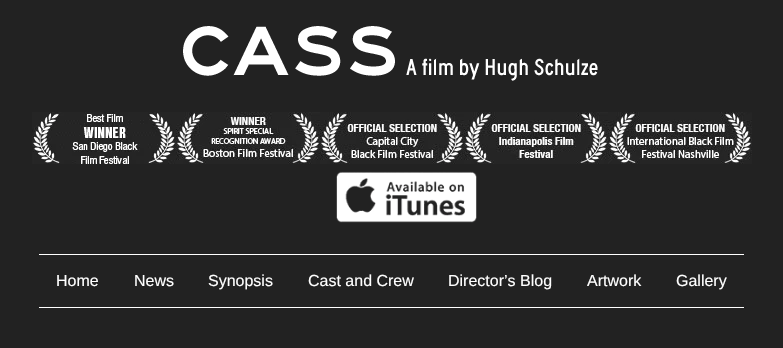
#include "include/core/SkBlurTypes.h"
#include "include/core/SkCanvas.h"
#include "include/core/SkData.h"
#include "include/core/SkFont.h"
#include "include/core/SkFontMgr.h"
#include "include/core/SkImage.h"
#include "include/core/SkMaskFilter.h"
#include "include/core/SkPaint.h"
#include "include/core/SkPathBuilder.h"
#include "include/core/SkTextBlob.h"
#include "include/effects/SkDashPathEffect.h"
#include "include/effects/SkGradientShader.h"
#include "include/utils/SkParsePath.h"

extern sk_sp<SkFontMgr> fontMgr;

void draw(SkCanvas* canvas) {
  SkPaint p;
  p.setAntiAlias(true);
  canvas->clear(SkColorSetRGB(34, 34, 34));
  canvas->drawImageRect(SkImages::DeferredFromEncodedData(SkData::MakeFromFileName("images/1.png")), SkRect::MakeLTRB(183, 26, 598, 81), SkSamplingOptions());
  canvas->drawImageRect(SkImages::DeferredFromEncodedData(SkData::MakeFromFileName("images/2.png")), SkRect::MakeLTRB(32, 112, 176, 164), SkSamplingOptions());
  canvas->drawImageRect(SkImages::DeferredFromEncodedData(SkData::MakeFromFileName("images/3.png")), SkRect::MakeLTRB(176, 112, 320, 164), SkSamplingOptions());
  canvas->drawImageRect(SkImages::DeferredFromEncodedData(SkData::MakeFromFileName("images/4.png")), SkRect::MakeLTRB(320, 112, 464, 164), SkSamplingOptions());
  canvas->drawImageRect(SkImages::DeferredFromEncodedData(SkData::MakeFromFileName("images/5.png")), SkRect::MakeLTRB(464, 112, 608, 164), SkSamplingOptions());
  canvas->drawImageRect(SkImages::DeferredFromEncodedData(SkData::MakeFromFileName("images/6.png")), SkRect::MakeLTRB(608, 112, 752, 164), SkSamplingOptions());
  canvas->drawImageRect(SkImages::DeferredFromEncodedData(SkData::MakeFromFileName("images/7.png")), SkRect::MakeLTRB(336, 171, 477, 223), SkSamplingOptions());
  p.setColor(SK_ColorWHITE);
  canvas->drawRect(SkRect::MakeLTRB(39, 254, 744, 255), p);
  canvas->drawRect(SkRect::MakeLTRB(39, 307, 744, 308), p);
  SkFont font1(fontMgr->matchFamilyStyle("Liberation Sans", SkFontStyle::Normal()), 16);
  font1.setSubpixel(true);
  canvas->drawString("Home", 56, 286, font1, p);
  canvas->drawString("News", 134, 286, font1, p);
  canvas->drawString("Synopsis", 208, 286, font1, p);
  canvas->drawString("Cast and Crew", 308, 286, font1, p);
  canvas->drawString("Director’s Blog", 448, 286, font1, p);
  canvas->drawString("Artwork", 587, 286, font1, p);
  canvas->drawString("Gallery", 676, 286, font1, p);
}
